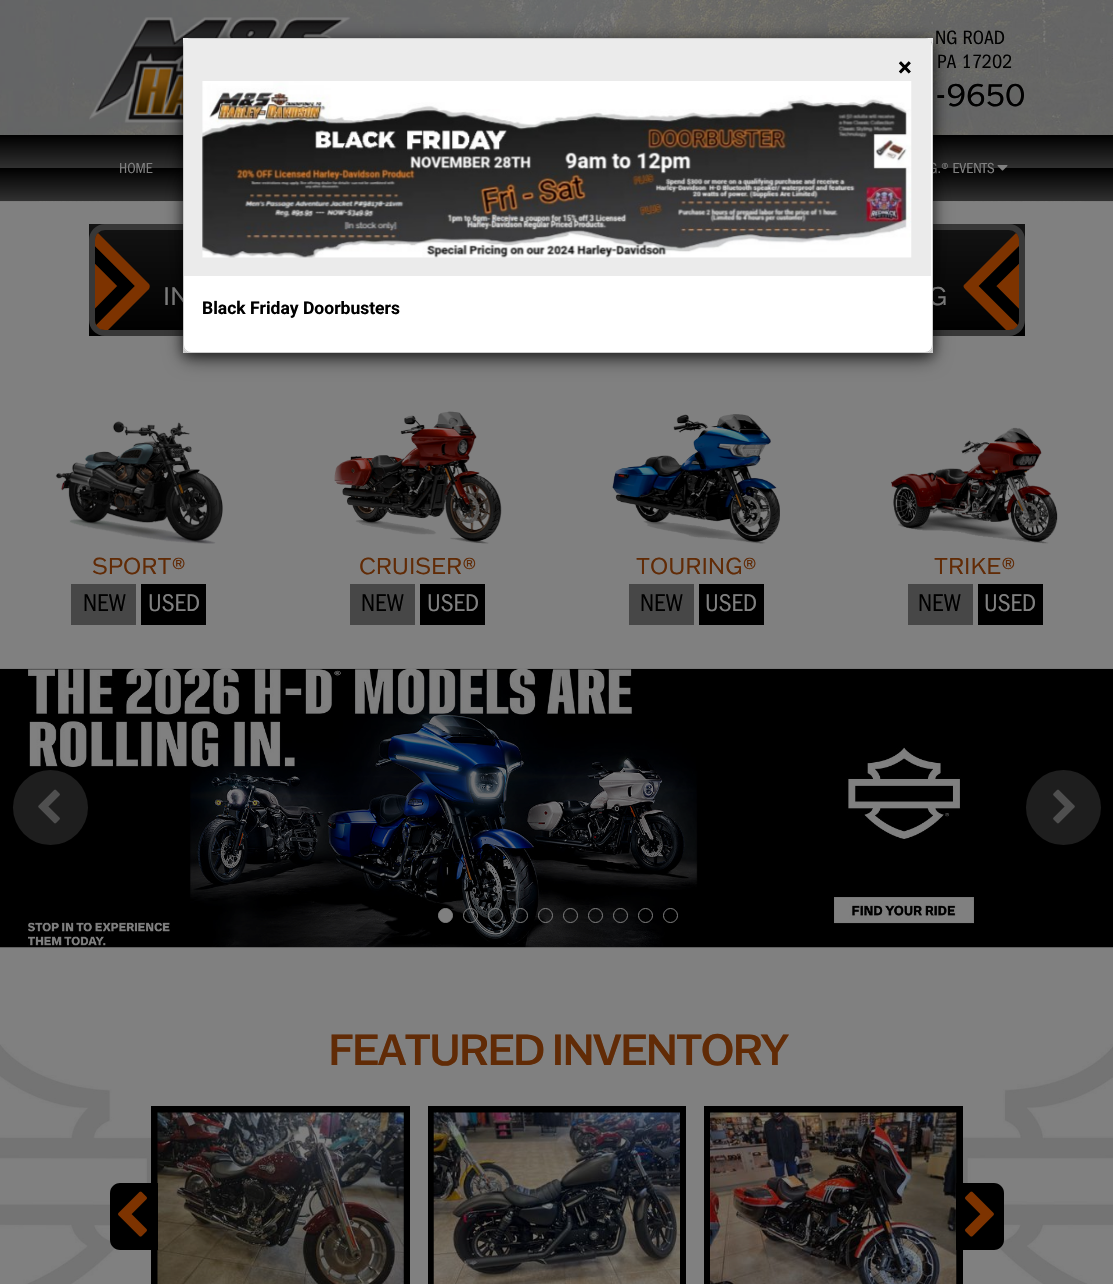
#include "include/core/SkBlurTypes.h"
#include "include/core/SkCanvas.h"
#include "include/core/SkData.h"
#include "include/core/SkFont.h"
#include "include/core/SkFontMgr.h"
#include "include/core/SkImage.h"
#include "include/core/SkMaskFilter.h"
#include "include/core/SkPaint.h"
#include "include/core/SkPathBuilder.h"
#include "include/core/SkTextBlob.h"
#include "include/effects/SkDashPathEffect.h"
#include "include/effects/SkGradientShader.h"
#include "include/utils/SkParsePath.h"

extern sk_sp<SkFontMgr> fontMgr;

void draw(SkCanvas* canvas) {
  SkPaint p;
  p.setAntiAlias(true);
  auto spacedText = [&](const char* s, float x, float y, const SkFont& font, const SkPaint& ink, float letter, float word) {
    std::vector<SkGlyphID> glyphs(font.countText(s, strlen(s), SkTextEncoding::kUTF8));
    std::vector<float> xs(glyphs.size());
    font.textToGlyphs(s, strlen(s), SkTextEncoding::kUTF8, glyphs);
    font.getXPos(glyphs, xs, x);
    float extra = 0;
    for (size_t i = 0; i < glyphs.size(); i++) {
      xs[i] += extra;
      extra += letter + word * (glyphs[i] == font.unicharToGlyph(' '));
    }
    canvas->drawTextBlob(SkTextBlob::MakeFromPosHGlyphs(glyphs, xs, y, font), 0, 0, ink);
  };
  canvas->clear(SkColorSetRGB(128, 128, 128));
  canvas->drawImageRect(SkImages::DeferredFromEncodedData(SkData::MakeFromFileName("images/1.png")), SkRect::MakeLTRB(0, 0, 1113, 202), SkSamplingOptions());
  canvas->drawImageRect(SkImages::DeferredFromEncodedData(SkData::MakeFromFileName("images/2.png")), SkRect::MakeLTRB(89, 17, 351, 123), SkSamplingOptions());
  {
    const SkColor colors[] = {SK_ColorBLACK, SkColorSetRGB(48, 48, 48), SK_ColorBLACK, SkColorSetRGB(48, 48, 48)};
    const float stops[] = {0, 0.5f, 0.5f, 0.99f};
    const SkPoint ends[] = {{557, 135}, {557, 201}};
    p.setShader(SkGradientShader::MakeLinear(ends, colors, stops, 4, SkTileMode::kClamp));
    p.setAlpha(255);
  }
  canvas->drawRect(SkRect::MakeLTRB(0, 135, 1113, 201), p);
  canvas->drawImageRect(SkImages::DeferredFromEncodedData(SkData::MakeFromFileName("images/3.png")), SkRect::MakeLTRB(997, 165, 1008, 171), SkSamplingOptions());
  {
    const SkColor colors[] = {SkColorSetRGB(19, 19, 19), SK_ColorBLACK};
    const float stops[] = {0, 1};
    const SkPoint ends[] = {{238, 224}, {238, 336}};
    p.setShader(SkGradientShader::MakeLinear(ends, colors, stops, 2, SkTileMode::kClamp));
    p.setAlpha(255);
  }
  canvas->drawRect(SkRect::MakeLTRB(89, 224, 183, 336), p);
  p.setStyle(SkPaint::kStroke_Style);
  p.setStrokeWidth(6);
  p.setShader(nullptr);
  p.setColor(SkColorSetRGB(56, 56, 56));
  canvas->drawRoundRect(SkRect::MakeLTRB(92, 227, 385, 333), 13, 13, p);
  p.setStyle(SkPaint::kFill_Style);
  {
    const SkColor colors[] = {SkColorSetRGB(19, 19, 19), SK_ColorBLACK};
    const float stops[] = {0, 1};
    const SkPoint ends[] = {{876, 224}, {876, 336}};
    p.setShader(SkGradientShader::MakeLinear(ends, colors, stops, 2, SkTileMode::kClamp));
    p.setAlpha(255);
  }
  canvas->drawRect(SkRect::MakeLTRB(933, 224, 1025, 336), p);
  p.setStyle(SkPaint::kStroke_Style);
  p.setShader(nullptr);
  p.setColor(SkColorSetRGB(56, 56, 56));
  canvas->drawRoundRect(SkRect::MakeLTRB(729, 227, 1022, 333), 13, 13, p);
  p.setStyle(SkPaint::kFill_Style);
  p.setColor(SkColorSetARGB(128, 0, 0, 0));
  p.setMaskFilter(SkMaskFilter::MakeBlur(kNormal_SkBlurStyle, 5.5f));
  canvas->drawRect(SkRect::MakeLTRB(183, 41, 933, 356), p);
  p.setMaskFilter(nullptr);
  p.setColor(SkColorSetRGB(125, 51, 0));
  canvas->drawPath(SkPathBuilder().moveTo(98, 233).lineTo(149, 284).cubicTo(150, 285, 150, 287, 149, 289).lineTo(108, 330).lineTo(105, 330).cubicTo(99, 330, 95, 326, 95, 320).lineTo(95, 240).cubicTo(95, 237, 96, 235, 98, 233).close().detach(), p);
  canvas->save();
  canvas->clipPath(SkPathBuilder().moveTo(105, 230).lineTo(371, 230).cubicTo(376.5f, 230, 381, 234.5f, 381, 240).lineTo(381, 320).cubicTo(381, 325.5f, 376.5f, 330, 371, 330).lineTo(105, 330).cubicTo(99.5f, 330, 95, 325.5f, 95, 320).lineTo(95, 240).cubicTo(95, 234.5f, 99.5f, 230, 105, 230).close().detach(), true);
  p.setStyle(SkPaint::kStroke_Style);
  p.setStrokeWidth(12.5f);
  p.setColor(SK_ColorBLACK);
  canvas->drawPath(SkPathBuilder().moveTo(82, 242).lineTo(126, 286).lineTo(82, 330.5f).lineTo(37.5f, 286).close().detach(), p);
  canvas->restore();
  p.setStyle(SkPaint::kFill_Style);
  p.setColor(SkColorSetRGB(125, 51, 0));
  canvas->drawPath(SkPathBuilder().moveTo(1006, 330).lineTo(965, 289).cubicTo(963, 287, 963, 285, 965, 284).lineTo(1016, 233).cubicTo(1018, 235, 1019, 237, 1019, 240).lineTo(1019, 320).cubicTo(1019, 326, 1015, 330, 1009, 330).close().detach(), p);
  canvas->save();
  canvas->clipPath(SkPathBuilder().moveTo(743, 230).lineTo(1009, 230).cubicTo(1014.5f, 230, 1019, 234.5f, 1019, 240).lineTo(1019, 320).cubicTo(1019, 325.5f, 1014.5f, 330, 1009, 330).lineTo(743, 330).cubicTo(737.5f, 330, 733, 325.5f, 733, 320).lineTo(733, 240).cubicTo(733, 234.5f, 737.5f, 230, 743, 230).close().detach(), true);
  p.setStyle(SkPaint::kStroke_Style);
  p.setColor(SK_ColorBLACK);
  canvas->drawPath(SkPathBuilder().moveTo(1032, 330.5f).lineTo(987.5f, 286).lineTo(1032, 242).lineTo(1076, 286.5f).close().detach(), p);
  canvas->restore();
  canvas->drawImageRect(SkImages::DeferredFromEncodedData(SkData::MakeFromFileName("images/5.png")), SkRect::MakeLTRB(55, 421, 223, 544), SkSamplingOptions());
  p.setStyle(SkPaint::kFill_Style);
  p.setColor(SkColorSetRGB(71, 71, 71));
  canvas->drawRect(SkRect::MakeLTRB(71, 584, 136, 625), p);
  p.setColor(SK_ColorBLACK);
  canvas->drawRect(SkRect::MakeLTRB(141, 584, 206, 625), p);
  canvas->drawImageRect(SkImages::DeferredFromEncodedData(SkData::MakeFromFileName("images/6.png")), SkRect::MakeLTRB(334, 411, 502, 544), SkSamplingOptions());
  p.setColor(SkColorSetRGB(71, 71, 71));
  canvas->drawRect(SkRect::MakeLTRB(350, 584, 415, 625), p);
  p.setColor(SK_ColorBLACK);
  canvas->drawRect(SkRect::MakeLTRB(420, 584, 485, 625), p);
  canvas->drawImageRect(SkImages::DeferredFromEncodedData(SkData::MakeFromFileName("images/7.png")), SkRect::MakeLTRB(612, 414, 780, 544), SkSamplingOptions());
  p.setColor(SkColorSetRGB(71, 71, 71));
  canvas->drawRect(SkRect::MakeLTRB(629, 584, 694, 625), p);
  p.setColor(SK_ColorBLACK);
  canvas->drawRect(SkRect::MakeLTRB(699, 584, 764, 625), p);
  canvas->drawImageRect(SkImages::DeferredFromEncodedData(SkData::MakeFromFileName("images/8.png")), SkRect::MakeLTRB(891, 427, 1058, 544), SkSamplingOptions());
  p.setColor(SkColorSetRGB(71, 71, 71));
  canvas->drawRect(SkRect::MakeLTRB(908, 584, 973, 625), p);
  p.setColor(SK_ColorBLACK);
  canvas->drawRect(SkRect::MakeLTRB(978, 584, 1043, 625), p);
  canvas->drawImageRect(SkImages::DeferredFromEncodedData(SkData::MakeFromFileName("images/9.png")), SkRect::MakeLTRB(0, 668, 1113, 948), SkSamplingOptions());
  p.setColor(SkColorSetRGB(30, 30, 30));
  canvas->drawCircle(50.5f, 807.5f, 37.5f, p);
  canvas->drawImageRect(SkImages::DeferredFromEncodedData(SkData::MakeFromFileName("images/10.png")), SkRect::MakeLTRB(38, 789, 60, 824), SkSamplingOptions());
  canvas->drawCircle(1063.5f, 807.5f, 37.5f, p);
  canvas->drawImageRect(SkImages::DeferredFromEncodedData(SkData::MakeFromFileName("images/11.png")), SkRect::MakeLTRB(1053, 789, 1075, 824), SkSamplingOptions());
  p.setColor(SkColorSetRGB(128, 128, 128));
  canvas->drawCircle(445.5f, 915.5f, 7, p);
  p.setStyle(SkPaint::kStroke_Style);
  p.setStrokeWidth(1);
  canvas->drawCircle(445.5f, 915.5f, 7, p);
  canvas->drawCircle(470.5f, 915.5f, 7, p);
  canvas->drawCircle(495.5f, 915.5f, 7, p);
  canvas->drawCircle(520.5f, 915.5f, 7, p);
  canvas->drawCircle(545.5f, 915.5f, 7, p);
  canvas->drawCircle(570.5f, 915.5f, 7, p);
  canvas->drawCircle(595.5f, 915.5f, 7, p);
  canvas->drawCircle(620.5f, 915.5f, 7, p);
  canvas->drawCircle(645.5f, 915.5f, 7, p);
  canvas->drawCircle(670.5f, 915.5f, 7, p);
  canvas->drawImageRect(SkImages::DeferredFromEncodedData(SkData::MakeFromFileName("images/12.png")), SkRect::MakeLTRB(0, 1044, 1113, 1284), SkSamplingOptions());
  p.setStyle(SkPaint::kFill_Style);
  p.setColor(SK_ColorBLACK);
  canvas->drawRect(SkRect::MakeLTRB(151, 1106, 410, 1284), p);
  canvas->drawImageRect(SkImages::DeferredFromEncodedData(SkData::MakeFromFileName("images/13.png")), SkRect::MakeLTRB(157, 1112, 404, 1284), SkSamplingOptions());
  canvas->drawRect(SkRect::MakeLTRB(428, 1106, 686, 1284), p);
  canvas->drawImageRect(SkImages::DeferredFromEncodedData(SkData::MakeFromFileName("images/14.png")), SkRect::MakeLTRB(433, 1112, 680, 1284), SkSamplingOptions());
  canvas->drawRect(SkRect::MakeLTRB(704, 1106, 963, 1284), p);
  canvas->drawImageRect(SkImages::DeferredFromEncodedData(SkData::MakeFromFileName("images/15.png")), SkRect::MakeLTRB(710, 1112, 957, 1284), SkSamplingOptions());
  canvas->drawPath(SkPathBuilder().moveTo(120, 1183).lineTo(158, 1183).lineTo(158, 1250).lineTo(120, 1250).cubicTo(114.5f, 1250, 110, 1245.5f, 110, 1240).lineTo(110, 1193).cubicTo(110, 1187.5f, 114.5f, 1183, 120, 1183).close().detach(), p);
  canvas->drawImageRect(SkImages::DeferredFromEncodedData(SkData::MakeFromFileName("images/16.png")), SkRect::MakeLTRB(118, 1191, 147, 1237), SkSamplingOptions());
  canvas->drawPath(SkPathBuilder().moveTo(956, 1183).lineTo(994, 1183).cubicTo(999.5f, 1183, 1004, 1187.5f, 1004, 1193).lineTo(1004, 1240).cubicTo(1004, 1245.5f, 999.5f, 1250, 994, 1250).lineTo(956, 1250).close().detach(), p);
  canvas->drawImageRect(SkImages::DeferredFromEncodedData(SkData::MakeFromFileName("images/17.png")), SkRect::MakeLTRB(965, 1191, 994, 1237), SkSamplingOptions());
  SkFont font1(fontMgr->matchFamilyStyle("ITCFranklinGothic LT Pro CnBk", SkFontStyle::Normal()), 20);
  font1.setSubpixel(true);
  canvas->drawString("NG ROAD", 935, 44, font1, p);
  canvas->drawString("PA 17202", 937, 68, font1, p);
  SkFont font2(fontMgr->matchFamilyStyle("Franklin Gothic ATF", SkFontStyle::Normal()), 32.5f);
  font2.setSubpixel(true);
  canvas->drawString("-9650", 935, 106, font2, p);
  SkFont font3(fontMgr->matchFamilyStyle("ITCFranklinGothic LT Pro CnBk", SkFontStyle::Normal()), 15);
  font3.setSubpixel(true);
  p.setColor(SkColorSetRGB(128, 128, 128));
  canvas->drawString("HOME", 119, 173, font3, p);
  canvas->drawString("G.® EVENTS", 929, 173, font3, p);
  SkFont font4(fontMgr->matchFamilyStyle("Franklin Gothic ATF", SkFontStyle::Normal()), 25);
  font4.setSubpixel(true);
  canvas->drawString("IN", 163, 305, font4, p);
  canvas->drawString("G", 928, 305, font4, p);
  p.setColor(SK_ColorWHITE);
  canvas->drawRect(SkRect::MakeLTRB(183, 38, 933, 353), p);
  canvas->save();
  canvas->clipPath(SkPathBuilder(SkPathFillType::kEvenOdd).moveTo(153, 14).lineTo(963, 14).lineTo(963, 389).lineTo(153, 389).close().moveTo(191, 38).lineTo(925, 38).cubicTo(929.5f, 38, 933, 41.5f, 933, 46).lineTo(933, 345).cubicTo(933, 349.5f, 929.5f, 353, 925, 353).lineTo(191, 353).cubicTo(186.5f, 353, 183, 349.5f, 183, 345).lineTo(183, 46).cubicTo(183, 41.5f, 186.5f, 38, 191, 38).close().detach(), true);
  p.setColor(SkColorSetARGB(128, 0, 0, 0));
  p.setMaskFilter(SkMaskFilter::MakeBlur(kNormal_SkBlurStyle, 9.5f));
  canvas->drawRoundRect(SkRect::MakeLTRB(183, 44, 933, 359), 8, 8, p);
  p.setMaskFilter(nullptr);
  canvas->restore();
  p.setStyle(SkPaint::kStroke_Style);
  p.setColor(SkColorSetARGB(51, 0, 0, 0));
  canvas->drawRoundRect(SkRect::MakeLTRB(183.5f, 38.5f, 932.5f, 352.5f), 7.5f, 7.5f, p);
  SkFont font5(fontMgr->matchFamilyStyle("Roboto", SkFontStyle::Bold()), 17.5f);
  font5.setSubpixel(true);
  p.setStyle(SkPaint::kFill_Style);
  p.setColor(SK_ColorBLACK);
  canvas->drawString("Black Friday Doorbusters", 202, 314, font5, p);
  p.setColor(SkColorSetRGB(235, 235, 235));
  canvas->drawRect(SkRect::MakeLTRB(184, 39, 931, 276), p);
  canvas->drawImageRect(SkImages::DeferredFromEncodedData(SkData::MakeFromFileName("images/4.png")), SkRect::MakeLTRB(202, 81, 912, 258), SkSamplingOptions());
  SkFont font6(fontMgr->matchFamilyStyle("Roboto", SkFontStyle::Bold()), 26);
  font6.setSubpixel(true);
  p.setColor(SK_ColorBLACK);
  canvas->drawString("×", 898, 76, font6, p);
  SkFont font7(fontMgr->matchFamilyStyle("Franklin Gothic ATF", SkFontStyle::Normal()), 22.5f);
  font7.setSubpixel(true);
  p.setColor(SkColorSetRGB(97, 43, 6));
  canvas->drawString("SPORT®", 92, 574, font7, p);
  SkFont font8(fontMgr->matchFamilyStyle("ITCFranklinGothic LT Pro CnBk", SkFontStyle::Normal()), 25);
  font8.setSubpixel(true);
  p.setColor(SK_ColorBLACK);
  canvas->drawString("NEW", 83, 611, font8, p);
  p.setColor(SkColorSetRGB(128, 128, 128));
  canvas->drawString("USED", 148, 611, font8, p);
  p.setColor(SkColorSetRGB(97, 43, 6));
  canvas->drawString("CRUISER®", 359, 574, font7, p);
  p.setColor(SK_ColorBLACK);
  canvas->drawString("NEW", 361, 611, font8, p);
  p.setColor(SkColorSetRGB(128, 128, 128));
  canvas->drawString("USED", 427, 611, font8, p);
  p.setColor(SkColorSetRGB(97, 43, 6));
  canvas->drawString("TOURING®", 636, 574, font7, p);
  p.setColor(SK_ColorBLACK);
  canvas->drawString("NEW", 640, 611, font8, p);
  p.setColor(SkColorSetRGB(128, 128, 128));
  canvas->drawString("USED", 705, 611, font8, p);
  p.setColor(SkColorSetRGB(97, 43, 6));
  canvas->drawString("TRIKE®", 934, 574, font7, p);
  p.setColor(SK_ColorBLACK);
  canvas->drawString("NEW", 918, 611, font8, p);
  p.setColor(SkColorSetRGB(128, 128, 128));
  canvas->drawString("USED", 984, 611, font8, p);
  SkFont font9(fontMgr->matchFamilyStyle("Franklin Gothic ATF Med", SkFontStyle(500, SkFontStyle::kNormal_Width, SkFontStyle::kUpright_Slant)), 42.5f);
  font9.setSubpixel(true);
  p.setColor(SkColorSetRGB(97, 43, 6));
  spacedText("FEATURED INVENTORY", 328, 1065, font9, p, -2.1f, 0);
}
